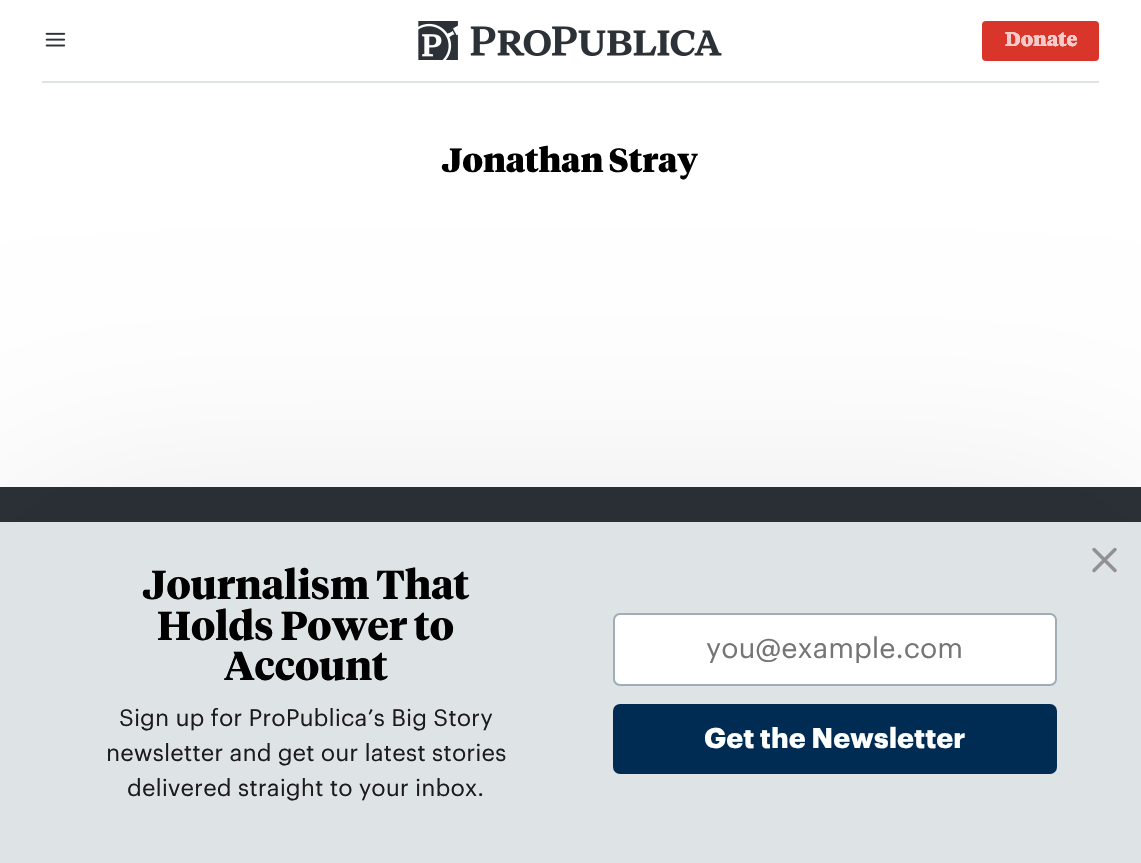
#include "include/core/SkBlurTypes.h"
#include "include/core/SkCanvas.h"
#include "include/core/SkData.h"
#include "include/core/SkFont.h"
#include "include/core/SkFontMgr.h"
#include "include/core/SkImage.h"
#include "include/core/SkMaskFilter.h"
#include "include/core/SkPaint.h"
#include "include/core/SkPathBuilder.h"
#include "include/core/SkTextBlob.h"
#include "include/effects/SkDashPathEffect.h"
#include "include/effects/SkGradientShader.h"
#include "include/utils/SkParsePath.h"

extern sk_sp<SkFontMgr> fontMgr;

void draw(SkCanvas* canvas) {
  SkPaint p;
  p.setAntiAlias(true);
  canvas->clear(SK_ColorWHITE);
  p.setColor(SkColorSetRGB(222, 227, 230));
  canvas->drawRect(SkRect::MakeLTRB(42, 81, 1099, 83), p);
  canvas->drawImageRect(SkImages::DeferredFromEncodedData(SkData::MakeFromFileName("images/1.png")), SkRect::MakeLTRB(45, 32, 66, 47), SkSamplingOptions());
  canvas->drawImageRect(SkImages::DeferredFromEncodedData(SkData::MakeFromFileName("images/2.png")), SkRect::MakeLTRB(418, 21, 722, 60), SkSamplingOptions());
  p.setColor(SkColorSetRGB(218, 53, 43));
  canvas->drawRoundRect(SkRect::MakeLTRB(982, 21, 1099, 61), 4, 4, p);
  p.setColor(SkColorSetRGB(43, 49, 55));
  canvas->drawRect(SkRect::MakeLTRB(0, 487, 1141, 522), p);
  p.setColor(SkColorSetARGB(26, 0, 0, 0));
  p.setMaskFilter(SkMaskFilter::MakeBlur(kNormal_SkBlurStyle, 122.5f));
  canvas->drawRect(SkRect::MakeLTRB(0, 522, 1141, 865), p);
  p.setMaskFilter(nullptr);
  p.setColor(SkColorSetRGB(222, 227, 230));
  canvas->drawRect(SkRect::MakeLTRB(0, 522, 1141, 863), p);
  p.setStyle(SkPaint::kStroke_Style);
  p.setStrokeWidth(3.5f);
  p.setStrokeCap(SkPaint::kRound_Cap);
  p.setStrokeJoin(SkPaint::kRound_Join);
  p.setColor(SkColorSetRGB(145, 145, 145));
  canvas->drawPath(SkPathBuilder().moveTo(1115, 549.5f).lineTo(1094, 570.5f).moveTo(1094, 549.5f).lineTo(1115, 570.5f).detach(), p);
  p.setStyle(SkPaint::kFill_Style);
  p.setColor(SK_ColorWHITE);
  canvas->drawRoundRect(SkRect::MakeLTRB(614, 614, 1056, 685), 6, 6, p);
  p.setStyle(SkPaint::kStroke_Style);
  p.setStrokeWidth(2);
  p.setStrokeCap(SkPaint::kButt_Cap);
  p.setStrokeJoin(SkPaint::kMiter_Join);
  p.setColor(SkColorSetRGB(158, 173, 182));
  canvas->drawRoundRect(SkRect::MakeLTRB(614, 614, 1056, 685), 6, 6, p);
  p.setStyle(SkPaint::kFill_Style);
  p.setColor(SkColorSetRGB(0, 44, 84));
  canvas->drawRoundRect(SkRect::MakeLTRB(613, 704, 1057, 774), 7, 7, p);
  SkFont font1(fontMgr->matchFamilyStyle("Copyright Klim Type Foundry", SkFontStyle::Bold()), 19.5f);
  font1.setSubpixel(true);
  p.setColor(SK_ColorWHITE);
  canvas->drawString("Donate", 1005, 46, font1, p);
  p.setColor(SkColorSetRGB(245, 203, 200));
  canvas->drawString("Donate", 1005, 46, font1, p);
  SkFont font2(fontMgr->matchFamilyStyle("Copyright Klim Type Foundry", SkFontStyle(900, SkFontStyle::kNormal_Width, SkFontStyle::kUpright_Slant)), 33.5f);
  font2.setSubpixel(true);
  p.setColor(SK_ColorBLACK);
  canvas->drawString("Jonathan Stray", 442, 172, font2, p);
  SkFont font3(fontMgr->matchFamilyStyle("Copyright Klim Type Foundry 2", SkFontStyle::Bold()), 40.25f);
  font3.setSubpixel(true);
  canvas->drawString("Journalism That", 143, 599, font3, p);
  canvas->drawString("Holds Power to", 157, 640, font3, p);
  canvas->drawString("Account", 224, 680, font3, p);
  SkFont font4(fontMgr->matchFamilyStyle("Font", SkFontStyle::Normal()), 23.3f);
  font4.setSubpixel(true);
  p.setColor(SkColorSetRGB(27, 27, 27));
  canvas->drawString("Sign up for ProPublica’s Big Story", 119, 726, font4, p);
  canvas->drawString("newsletter and get our latest stories", 106, 761, font4, p);
  canvas->drawString("delivered straight to your inbox.", 127, 796, font4, p);
  canvas->save();
  canvas->clipRect(SkRect::MakeLTRB(628, 635, 1041, 663));
  SkFont font5(fontMgr->matchFamilyStyle("Font", SkFontStyle::Normal()), 28);
  font5.setSubpixel(true);
  p.setColor(SkColorSetRGB(117, 117, 117));
  canvas->drawString("you@example.com", 706, 658, font5, p);
  canvas->restore();
  SkFont font6(fontMgr->matchFamilyStyle("Font", SkFontStyle::Bold()), 28);
  font6.setSubpixel(true);
  p.setColor(SK_ColorWHITE);
  canvas->drawString("Get the Newsletter", 704, 748, font6, p);
}
